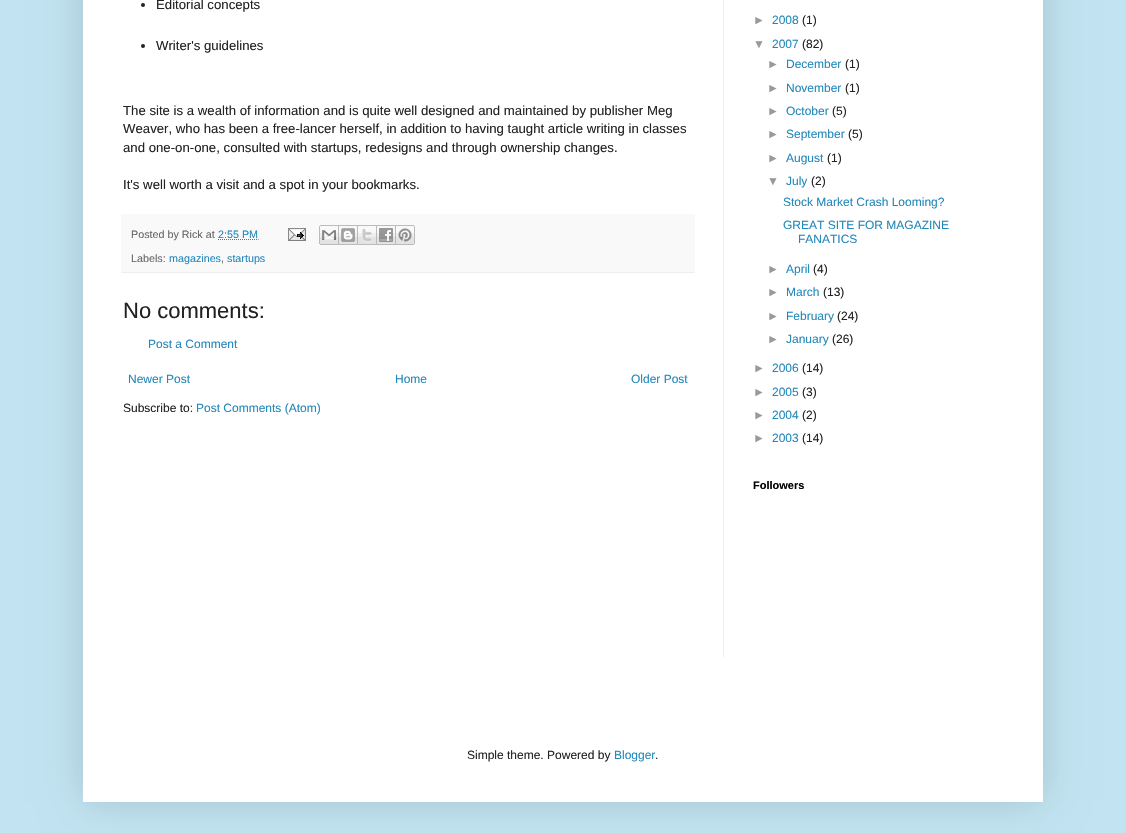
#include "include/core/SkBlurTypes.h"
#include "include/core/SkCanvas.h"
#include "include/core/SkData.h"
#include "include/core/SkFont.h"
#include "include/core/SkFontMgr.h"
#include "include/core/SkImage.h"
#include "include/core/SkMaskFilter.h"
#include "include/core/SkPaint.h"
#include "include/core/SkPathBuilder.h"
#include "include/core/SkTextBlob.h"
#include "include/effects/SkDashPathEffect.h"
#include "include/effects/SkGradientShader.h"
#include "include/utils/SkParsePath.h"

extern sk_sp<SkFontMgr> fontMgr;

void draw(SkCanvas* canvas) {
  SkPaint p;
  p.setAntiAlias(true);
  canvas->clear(SkColorSetRGB(194, 228, 242));
  p.setColor(SkColorSetARGB(38, 0, 0, 0));
  p.setMaskFilter(SkMaskFilter::MakeBlur(kNormal_SkBlurStyle, 20));
  canvas->drawRect(SkRect::MakeLTRB(83, -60, 1043, 802), p);
  p.setMaskFilter(nullptr);
  p.setColor(SK_ColorWHITE);
  canvas->drawRect(SkRect::MakeLTRB(83, 0, 1043, 802), p);
  p.setColor(SkColorSetRGB(34, 34, 34));
  canvas->drawCircle(143, 5, 2, p);
  canvas->drawCircle(143, 46, 2, p);
  p.setColor(SkColorSetRGB(249, 249, 249));
  canvas->drawRect(SkRect::MakeLTRB(121, 214, 695, 272), p);
  p.setColor(SkColorSetRGB(238, 238, 238));
  canvas->drawRect(SkRect::MakeLTRB(121, 272, 695, 273), p);
  p.setStyle(SkPaint::kStroke_Style);
  p.setStrokeWidth(1);
  p.setColor(SkColorSetRGB(34, 136, 187));
  p.setPathEffect(SkDashPathEffect::Make({{1, 1}}, 0));
  canvas->drawPath(SkPathBuilder().moveTo(218, 239.5f).lineTo(258.5f, 239.5f).detach(), p);
  p.setPathEffect(nullptr);
  canvas->drawImageRect(SkImages::DeferredFromEncodedData(SkData::MakeFromFileName("images/1.png")), SkRect::MakeLTRB(288, 228, 306, 241), SkSamplingOptions());
  canvas->drawImageRect(SkImages::DeferredFromEncodedData(SkData::MakeFromFileName("images/2.png")), SkRect::MakeLTRB(319, 225, 339, 245), SkSamplingOptions());
  canvas->drawImageRect(SkImages::DeferredFromEncodedData(SkData::MakeFromFileName("images/3.png")), SkRect::MakeLTRB(339, 225, 358, 245), SkSamplingOptions());
  canvas->drawImageRect(SkImages::DeferredFromEncodedData(SkData::MakeFromFileName("images/4.png")), SkRect::MakeLTRB(358, 225, 377, 245), SkSamplingOptions());
  canvas->drawImageRect(SkImages::DeferredFromEncodedData(SkData::MakeFromFileName("images/5.png")), SkRect::MakeLTRB(377, 225, 396, 245), SkSamplingOptions());
  canvas->drawImageRect(SkImages::DeferredFromEncodedData(SkData::MakeFromFileName("images/6.png")), SkRect::MakeLTRB(396, 225, 415, 245), SkSamplingOptions());
  p.setStyle(SkPaint::kFill_Style);
  p.setColor(SkColorSetRGB(238, 238, 238));
  canvas->drawRect(SkRect::MakeLTRB(723, 0, 724, 657), p);
  SkFont font1(fontMgr->matchFamilyStyle("Liberation Sans", SkFontStyle::Normal()), 13.2f);
  font1.setSubpixel(true);
  p.setColor(SkColorSetRGB(34, 34, 34));
  canvas->drawString("Editorial concepts", 156, 9, font1, p);
  canvas->drawString("Writer's guidelines", 156, 50, font1, p);
  canvas->drawString("The site is a wealth of information and is quite well designed and maintained by publisher Meg", 123, 115, font1, p);
  canvas->drawString("Weaver, who has been a free-lancer herself, in addition to having taught article writing in classes", 123, 133, font1, p);
  canvas->drawString("and one-on-one, consulted with startups, redesigns and through ownership changes.", 123, 152, font1, p);
  canvas->drawString("It's well worth a visit and a spot in your bookmarks.", 123, 189, font1, p);
  SkFont font2(fontMgr->matchFamilyStyle("Liberation Sans", SkFontStyle::Normal()), 10.75f);
  font2.setSubpixel(true);
  p.setColor(SkColorSetRGB(102, 102, 102));
  canvas->drawString("Posted by Rick at", 131, 238, font2, p);
  p.setColor(SkColorSetRGB(34, 136, 187));
  canvas->drawString("2:55 PM", 218, 238, font2, p);
  p.setColor(SkColorSetRGB(102, 102, 102));
  canvas->drawString("Labels:", 131, 262, font2, p);
  p.setColor(SkColorSetRGB(34, 136, 187));
  canvas->drawString("magazines", 169, 262, font2, p);
  p.setColor(SkColorSetRGB(102, 102, 102));
  canvas->drawString(",", 221, 262, font2, p);
  p.setColor(SkColorSetRGB(34, 136, 187));
  canvas->drawString("startups", 227, 262, font2, p);
  SkFont font3(fontMgr->matchFamilyStyle("Liberation Sans", SkFontStyle::Normal()), 22);
  font3.setSubpixel(true);
  p.setColor(SkColorSetRGB(34, 34, 34));
  canvas->drawString("No comments:", 123, 318, font3, p);
  SkFont font4(fontMgr->matchFamilyStyle("Liberation Sans", SkFontStyle::Normal()), 12);
  font4.setSubpixel(true);
  p.setColor(SkColorSetRGB(34, 136, 187));
  canvas->drawString("Post a Comment", 148, 348, font4, p);
  canvas->drawString("Newer Post", 128, 383, font4, p);
  canvas->drawString("Home", 395, 383, font4, p);
  canvas->drawString("Older Post", 631, 383, font4, p);
  p.setColor(SkColorSetRGB(34, 34, 34));
  canvas->drawString("Subscribe to:", 123, 412, font4, p);
  p.setColor(SkColorSetRGB(34, 136, 187));
  canvas->drawString("Post Comments (Atom)", 196, 412, font4, p);
  p.setColor(SkColorSetRGB(153, 153, 153));
  canvas->drawString("►", 753, 24, font4, p);
  p.setColor(SkColorSetRGB(34, 136, 187));
  canvas->drawString("2008", 772, 24, font4, p);
  p.setColor(SkColorSetRGB(34, 34, 34));
  canvas->drawString("(1)", 802, 24, font4, p);
  p.setColor(SkColorSetRGB(153, 153, 153));
  canvas->drawString("▼", 753, 48, font4, p);
  p.setColor(SkColorSetRGB(34, 136, 187));
  canvas->drawString("2007", 772, 48, font4, p);
  p.setColor(SkColorSetRGB(34, 34, 34));
  canvas->drawString("(82)", 802, 48, font4, p);
  p.setColor(SkColorSetRGB(153, 153, 153));
  canvas->drawString("►", 767, 68, font4, p);
  p.setColor(SkColorSetRGB(34, 136, 187));
  canvas->drawString("December", 786, 68, font4, p);
  p.setColor(SkColorSetRGB(34, 34, 34));
  canvas->drawString("(1)", 845, 68, font4, p);
  p.setColor(SkColorSetRGB(153, 153, 153));
  canvas->drawString("►", 767, 92, font4, p);
  p.setColor(SkColorSetRGB(34, 136, 187));
  canvas->drawString("November", 786, 92, font4, p);
  p.setColor(SkColorSetRGB(34, 34, 34));
  canvas->drawString("(1)", 845, 92, font4, p);
  p.setColor(SkColorSetRGB(153, 153, 153));
  canvas->drawString("►", 767, 115, font4, p);
  p.setColor(SkColorSetRGB(34, 136, 187));
  canvas->drawString("October", 786, 115, font4, p);
  p.setColor(SkColorSetRGB(34, 34, 34));
  canvas->drawString("(5)", 832, 115, font4, p);
  p.setColor(SkColorSetRGB(153, 153, 153));
  canvas->drawString("►", 767, 138, font4, p);
  p.setColor(SkColorSetRGB(34, 136, 187));
  canvas->drawString("September", 786, 138, font4, p);
  p.setColor(SkColorSetRGB(34, 34, 34));
  canvas->drawString("(5)", 848, 138, font4, p);
  p.setColor(SkColorSetRGB(153, 153, 153));
  canvas->drawString("►", 767, 162, font4, p);
  p.setColor(SkColorSetRGB(34, 136, 187));
  canvas->drawString("August", 786, 162, font4, p);
  p.setColor(SkColorSetRGB(34, 34, 34));
  canvas->drawString("(1)", 827, 162, font4, p);
  p.setColor(SkColorSetRGB(153, 153, 153));
  canvas->drawString("▼", 767, 185, font4, p);
  p.setColor(SkColorSetRGB(34, 136, 187));
  canvas->drawString("July", 786, 185, font4, p);
  p.setColor(SkColorSetRGB(34, 34, 34));
  canvas->drawString("(2)", 811, 185, font4, p);
  p.setColor(SkColorSetRGB(34, 136, 187));
  canvas->drawString("Stock Market Crash Looming?", 783, 206, font4, p);
  canvas->drawString("GREAT SITE FOR MAGAZINE", 783, 229, font4, p);
  canvas->drawString("FANATICS", 798, 243, font4, p);
  p.setColor(SkColorSetRGB(153, 153, 153));
  canvas->drawString("►", 767, 273, font4, p);
  p.setColor(SkColorSetRGB(34, 136, 187));
  canvas->drawString("April", 786, 273, font4, p);
  p.setColor(SkColorSetRGB(34, 34, 34));
  canvas->drawString("(4)", 813, 273, font4, p);
  p.setColor(SkColorSetRGB(153, 153, 153));
  canvas->drawString("►", 767, 296, font4, p);
  p.setColor(SkColorSetRGB(34, 136, 187));
  canvas->drawString("March", 786, 296, font4, p);
  p.setColor(SkColorSetRGB(34, 34, 34));
  canvas->drawString("(13)", 823, 296, font4, p);
  p.setColor(SkColorSetRGB(153, 153, 153));
  canvas->drawString("►", 767, 320, font4, p);
  p.setColor(SkColorSetRGB(34, 136, 187));
  canvas->drawString("February", 786, 320, font4, p);
  p.setColor(SkColorSetRGB(34, 34, 34));
  canvas->drawString("(24)", 837, 320, font4, p);
  p.setColor(SkColorSetRGB(153, 153, 153));
  canvas->drawString("►", 767, 343, font4, p);
  p.setColor(SkColorSetRGB(34, 136, 187));
  canvas->drawString("January", 786, 343, font4, p);
  p.setColor(SkColorSetRGB(34, 34, 34));
  canvas->drawString("(26)", 832, 343, font4, p);
  p.setColor(SkColorSetRGB(153, 153, 153));
  canvas->drawString("►", 753, 372, font4, p);
  p.setColor(SkColorSetRGB(34, 136, 187));
  canvas->drawString("2006", 772, 372, font4, p);
  p.setColor(SkColorSetRGB(34, 34, 34));
  canvas->drawString("(14)", 802, 372, font4, p);
  p.setColor(SkColorSetRGB(153, 153, 153));
  canvas->drawString("►", 753, 396, font4, p);
  p.setColor(SkColorSetRGB(34, 136, 187));
  canvas->drawString("2005", 772, 396, font4, p);
  p.setColor(SkColorSetRGB(34, 34, 34));
  canvas->drawString("(3)", 802, 396, font4, p);
  p.setColor(SkColorSetRGB(153, 153, 153));
  canvas->drawString("►", 753, 419, font4, p);
  p.setColor(SkColorSetRGB(34, 136, 187));
  canvas->drawString("2004", 772, 419, font4, p);
  p.setColor(SkColorSetRGB(34, 34, 34));
  canvas->drawString("(2)", 802, 419, font4, p);
  p.setColor(SkColorSetRGB(153, 153, 153));
  canvas->drawString("►", 753, 442, font4, p);
  p.setColor(SkColorSetRGB(34, 136, 187));
  canvas->drawString("2003", 772, 442, font4, p);
  p.setColor(SkColorSetRGB(34, 34, 34));
  canvas->drawString("(14)", 802, 442, font4, p);
  SkFont font5(fontMgr->matchFamilyStyle("Liberation Sans", SkFontStyle::Bold()), 11);
  font5.setSubpixel(true);
  p.setColor(SK_ColorBLACK);
  canvas->drawString("Followers", 753, 489, font5, p);
  p.setColor(SkColorSetRGB(34, 34, 34));
  canvas->drawString("Simple theme. Powered by", 467, 759, font4, p);
  p.setColor(SkColorSetRGB(34, 136, 187));
  canvas->drawString("Blogger", 614, 759, font4, p);
  p.setColor(SkColorSetRGB(34, 34, 34));
  canvas->drawString(".", 655, 759, font4, p);
}
